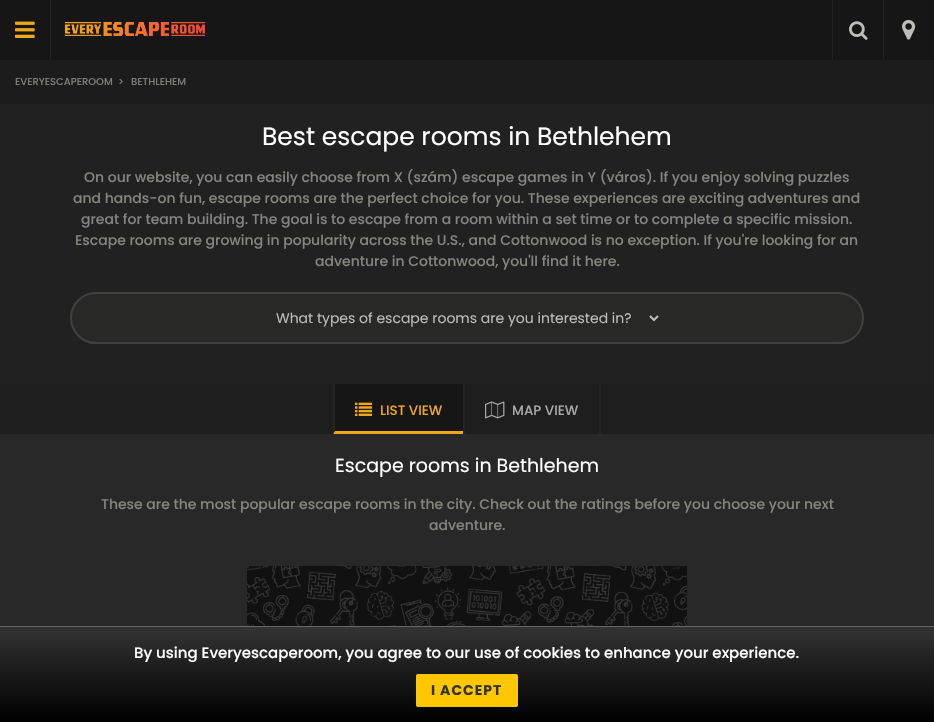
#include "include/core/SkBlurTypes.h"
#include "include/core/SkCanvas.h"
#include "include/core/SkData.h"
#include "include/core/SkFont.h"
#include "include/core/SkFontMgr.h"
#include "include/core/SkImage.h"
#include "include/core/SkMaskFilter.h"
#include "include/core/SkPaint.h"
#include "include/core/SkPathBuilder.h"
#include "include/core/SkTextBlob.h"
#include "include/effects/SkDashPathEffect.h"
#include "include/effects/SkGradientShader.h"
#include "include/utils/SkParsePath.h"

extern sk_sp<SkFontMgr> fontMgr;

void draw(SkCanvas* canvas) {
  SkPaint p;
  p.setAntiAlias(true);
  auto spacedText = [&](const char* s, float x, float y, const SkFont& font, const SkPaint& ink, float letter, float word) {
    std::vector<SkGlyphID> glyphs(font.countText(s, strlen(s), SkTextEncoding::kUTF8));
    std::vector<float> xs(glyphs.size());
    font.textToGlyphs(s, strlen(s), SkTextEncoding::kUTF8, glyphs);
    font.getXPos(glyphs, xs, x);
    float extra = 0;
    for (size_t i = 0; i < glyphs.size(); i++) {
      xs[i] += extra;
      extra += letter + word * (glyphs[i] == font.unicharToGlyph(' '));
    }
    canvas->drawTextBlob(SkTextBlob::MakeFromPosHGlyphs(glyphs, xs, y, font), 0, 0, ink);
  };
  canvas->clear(SkColorSetRGB(40, 40, 40));
  p.setColor(SkColorSetRGB(22, 22, 22));
  canvas->drawRect(SkRect::MakeLTRB(0, 0, 934, 60), p);
  p.setColor(SkColorSetRGB(34, 34, 34));
  canvas->drawRect(SkRect::MakeLTRB(50, 0, 51, 60), p);
  canvas->drawImageRect(SkImages::DeferredFromEncodedData(SkData::MakeFromFileName("images/1.png")), SkRect::MakeLTRB(15, 21, 35, 38), SkSamplingOptions());
  canvas->drawImageRect(SkImages::DeferredFromEncodedData(SkData::MakeFromFileName("images/2.png")), SkRect::MakeLTRB(65, 21, 205, 36), SkSamplingOptions());
  canvas->drawRect(SkRect::MakeLTRB(832, 0, 833, 60), p);
  canvas->drawImageRect(SkImages::DeferredFromEncodedData(SkData::MakeFromFileName("images/3.png")), SkRect::MakeLTRB(849, 21, 868, 40), SkSamplingOptions());
  canvas->drawRect(SkRect::MakeLTRB(883, 0, 884, 60), p);
  canvas->drawImageRect(SkImages::DeferredFromEncodedData(SkData::MakeFromFileName("images/4.png")), SkRect::MakeLTRB(902, 19, 916, 40), SkSamplingOptions());
  p.setColor(SkColorSetRGB(28, 28, 28));
  canvas->drawRect(SkRect::MakeLTRB(0, 60, 934, 104), p);
  p.setColor(SkColorSetRGB(33, 33, 33));
  canvas->drawRect(SkRect::MakeLTRB(0, 104, 934, 384), p);
  p.setColor(SkColorSetRGB(40, 40, 39));
  canvas->drawRoundRect(SkRect::MakeLTRB(71, 293, 863, 343), 25, 25, p);
  p.setStyle(SkPaint::kStroke_Style);
  p.setStrokeWidth(2);
  p.setColor(SkColorSetRGB(64, 64, 63));
  canvas->drawRoundRect(SkRect::MakeLTRB(71, 293, 863, 343), 25, 25, p);
  p.setColor(SkColorSetRGB(190, 189, 185));
  canvas->drawPath(SkPathBuilder().moveTo(650, 316).lineTo(654, 320).lineTo(658, 316).detach(), p);
  p.setStyle(SkPaint::kFill_Style);
  p.setColor(SkColorSetRGB(30, 30, 30));
  canvas->drawRect(SkRect::MakeLTRB(0, 384, 934, 434), p);
  p.setColor(SkColorSetRGB(22, 22, 22));
  canvas->drawRect(SkRect::MakeLTRB(333, 384, 463, 434), p);
  p.setColor(SkColorSetRGB(241, 167, 27));
  canvas->drawPath(SkPathBuilder().moveTo(463, 434).lineTo(333, 434).lineTo(335, 431).lineTo(463, 431).close().detach(), p);
  p.setColor(SkColorSetRGB(37, 37, 37));
  canvas->drawPath(SkPathBuilder().moveTo(333, 434).lineTo(333, 384).lineTo(335, 384).lineTo(335, 431).close().detach(), p);
  canvas->drawImageRect(SkImages::DeferredFromEncodedData(SkData::MakeFromFileName("images/5.png")), SkRect::MakeLTRB(355, 402, 372, 416), SkSamplingOptions());
  canvas->drawRect(SkRect::MakeLTRB(599, 384, 601, 434), p);
  canvas->drawRect(SkRect::MakeLTRB(463, 384, 465, 434), p);
  canvas->drawImageRect(SkImages::DeferredFromEncodedData(SkData::MakeFromFileName("images/6.png")), SkRect::MakeLTRB(485, 401, 505, 419), SkSamplingOptions());
  canvas->drawImageRect(SkImages::DeferredFromEncodedData(SkData::MakeFromFileName("images/7.png")), SkRect::MakeLTRB(247, 566, 687, 626), SkSamplingOptions());
  {
    const SkColor colors[] = {SkColorSetRGB(51, 51, 51), SK_ColorBLACK};
    const float stops[] = {0, 1};
    const SkPoint ends[] = {{467, 627}, {467, 722}};
    p.setShader(SkGradientShader::MakeLinear(ends, colors, stops, 2, SkTileMode::kClamp));
    p.setAlpha(255);
  }
  canvas->drawRect(SkRect::MakeLTRB(0, 627, 934, 722), p);
  p.setShader(nullptr);
  p.setColor(SkColorSetRGB(102, 102, 102));
  canvas->drawRect(SkRect::MakeLTRB(0, 626, 934, 627), p);
  p.setColor(SkColorSetRGB(254, 199, 0));
  canvas->drawRoundRect(SkRect::MakeLTRB(416, 674, 518, 707), 2, 2, p);
  SkFont font1(fontMgr->matchFamilyStyle("Poppins", SkFontStyle(500, SkFontStyle::kNormal_Width, SkFontStyle::kUpright_Slant)), 10);
  font1.setSubpixel(true);
  p.setColor(SkColorSetRGB(128, 125, 121));
  canvas->drawString("EVERYESCAPEROOM", 15, 85, font1, p);
  canvas->drawString(">", 118, 85, font1, p);
  canvas->drawString("BETHLEHEM", 131, 85, font1, p);
  SkFont font2(fontMgr->matchFamilyStyle("Poppins", SkFontStyle::Normal()), 25);
  font2.setSubpixel(true);
  p.setColor(SK_ColorWHITE);
  canvas->drawString("Best escape rooms in Bethlehem", 262, 145, font2, p);
  SkFont font3(fontMgr->matchFamilyStyle("Poppins", SkFontStyle(500, SkFontStyle::kNormal_Width, SkFontStyle::kUpright_Slant)), 14);
  font3.setSubpixel(true);
  p.setColor(SkColorSetRGB(134, 132, 126));
  canvas->drawString("On our website, you can easily choose from X (szám) escape games in Y (város). If you enjoy solving puzzles", 84, 182, font3, p);
  canvas->drawString("and hands-on fun, escape rooms are the perfect choice for you. These experiences are exciting adventures and", 73, 203, font3, p);
  canvas->drawString("great for team building. The goal is to escape from a room within a set time or to complete a specific mission.", 81, 224, font3, p);
  canvas->drawString("Escape rooms are growing in popularity across the U.S., and Cottonwood is no exception. If you're looking for an", 75, 245, font3, p);
  canvas->drawString("adventure in Cottonwood, you'll find it here.", 315, 266, font3, p);
  SkFont font4(fontMgr->matchFamilyStyle("Poppins", SkFontStyle::Normal()), 14);
  font4.setSubpixel(true);
  p.setColor(SkColorSetRGB(190, 189, 185));
  canvas->drawString("What types of escape rooms are you interested in?", 276, 323, font4, p);
  SkFont font5(fontMgr->matchFamilyStyle("Poppins", SkFontStyle(500, SkFontStyle::kNormal_Width, SkFontStyle::kUpright_Slant)), 13.5f);
  font5.setSubpixel(true);
  p.setColor(SkColorSetRGB(241, 167, 27));
  canvas->drawString("LIST VIEW", 380, 415, font5, p);
  p.setColor(SkColorSetRGB(170, 169, 166));
  canvas->drawString("MAP VIEW", 512, 415, font5, p);
  SkFont font6(fontMgr->matchFamilyStyle("Poppins", SkFontStyle::Normal()), 19);
  font6.setSubpixel(true);
  p.setColor(SK_ColorWHITE);
  canvas->drawString("Escape rooms in Bethlehem", 335, 472, font6, p);
  p.setColor(SkColorSetRGB(134, 132, 126));
  canvas->drawString("These are the most popular escape rooms in the city. Check out the ratings before you choose your next", 101, 509, font3, p);
  canvas->drawString("adventure.", 429, 530, font3, p);
  SkFont font7(fontMgr->matchFamilyStyle("Poppins", SkFontStyle(500, SkFontStyle::kNormal_Width, SkFontStyle::kUpright_Slant)), 15);
  font7.setSubpixel(true);
  p.setColor(SK_ColorWHITE);
  canvas->drawString("By using Everyescaperoom, you agree to our use of cookies to enhance your experience.", 134, 658, font7, p);
  SkFont font8(fontMgr->matchFamilyStyle("Poppins", SkFontStyle::Bold()), 14);
  font8.setSubpixel(true);
  p.setColor(SkColorSetRGB(51, 51, 51));
  spacedText("I ACCEPT", 431, 695, font8, p, 1, 0);
}
